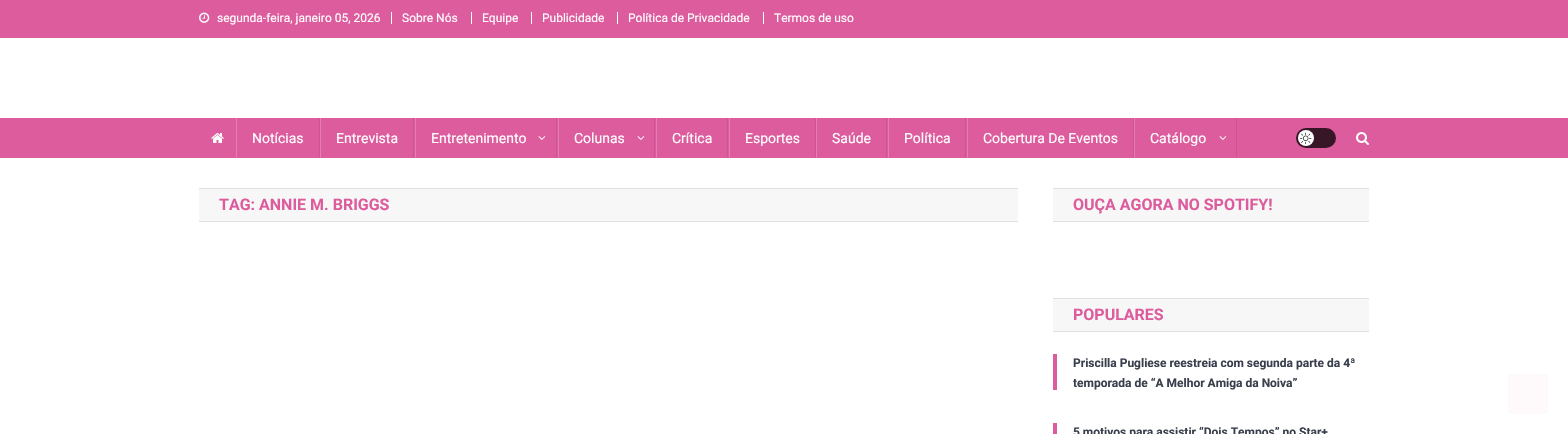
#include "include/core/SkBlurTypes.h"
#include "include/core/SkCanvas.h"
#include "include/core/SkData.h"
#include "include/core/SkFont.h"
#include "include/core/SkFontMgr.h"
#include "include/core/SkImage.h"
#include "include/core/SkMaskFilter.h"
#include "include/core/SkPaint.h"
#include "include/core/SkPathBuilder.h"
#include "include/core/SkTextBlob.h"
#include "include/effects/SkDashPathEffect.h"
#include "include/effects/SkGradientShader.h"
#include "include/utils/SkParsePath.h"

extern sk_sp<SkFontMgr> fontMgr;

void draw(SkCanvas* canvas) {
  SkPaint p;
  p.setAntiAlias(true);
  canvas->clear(SK_ColorWHITE);
  p.setColor(SkColorSetRGB(221, 92, 157));
  canvas->drawRect(SkRect::MakeLTRB(0, 0, 1568, 38), p);
  canvas->drawImageRect(SkImages::DeferredFromEncodedData(SkData::MakeFromFileName("images/1.png")), SkRect::MakeLTRB(199, 12, 210, 23), SkSamplingOptions());
  p.setColor(SK_ColorWHITE);
  canvas->drawRect(SkRect::MakeLTRB(391, 12, 392, 24), p);
  canvas->drawRect(SkRect::MakeLTRB(471, 12, 472, 24), p);
  canvas->drawRect(SkRect::MakeLTRB(531, 12, 532, 24), p);
  canvas->drawRect(SkRect::MakeLTRB(617, 12, 618, 24), p);
  canvas->drawRect(SkRect::MakeLTRB(763, 12, 764, 24), p);
  p.setColor(SkColorSetRGB(221, 92, 157));
  canvas->drawRect(SkRect::MakeLTRB(0, 118, 1568, 158), p);
  canvas->drawImageRect(SkImages::DeferredFromEncodedData(SkData::MakeFromFileName("images/2.png")), SkRect::MakeLTRB(211, 133, 224, 143), SkSamplingOptions());
  p.setColor(SkColorSetRGB(203, 85, 144));
  canvas->drawRect(SkRect::MakeLTRB(319, 118, 320, 158), p);
  p.setColor(SkColorSetRGB(228, 125, 177));
  canvas->drawRect(SkRect::MakeLTRB(236, 118, 237, 158), p);
  p.setColor(SkColorSetRGB(203, 85, 144));
  canvas->drawRect(SkRect::MakeLTRB(413, 118, 414, 158), p);
  p.setColor(SkColorSetRGB(228, 125, 177));
  canvas->drawRect(SkRect::MakeLTRB(320, 118, 321, 158), p);
  p.setColor(SkColorSetRGB(203, 85, 144));
  canvas->drawRect(SkRect::MakeLTRB(556, 118, 557, 158), p);
  p.setColor(SkColorSetRGB(228, 125, 177));
  canvas->drawRect(SkRect::MakeLTRB(415, 118, 416, 158), p);
  canvas->drawImageRect(SkImages::DeferredFromEncodedData(SkData::MakeFromFileName("images/3.png")), SkRect::MakeLTRB(538, 136, 546, 140), SkSamplingOptions());
  p.setColor(SkColorSetRGB(203, 85, 144));
  canvas->drawRect(SkRect::MakeLTRB(654, 118, 655, 158), p);
  p.setColor(SkColorSetRGB(228, 125, 177));
  canvas->drawRect(SkRect::MakeLTRB(558, 118, 559, 158), p);
  canvas->drawImageRect(SkImages::DeferredFromEncodedData(SkData::MakeFromFileName("images/3.png")), SkRect::MakeLTRB(637, 136, 645, 140), SkSamplingOptions());
  p.setColor(SkColorSetRGB(203, 85, 144));
  canvas->drawRect(SkRect::MakeLTRB(727, 118, 728, 158), p);
  p.setColor(SkColorSetRGB(228, 125, 177));
  canvas->drawRect(SkRect::MakeLTRB(656, 118, 657, 158), p);
  p.setColor(SkColorSetRGB(203, 85, 144));
  canvas->drawRect(SkRect::MakeLTRB(815, 118, 816, 158), p);
  p.setColor(SkColorSetRGB(228, 125, 177));
  canvas->drawRect(SkRect::MakeLTRB(729, 118, 730, 158), p);
  p.setColor(SkColorSetRGB(203, 85, 144));
  canvas->drawRect(SkRect::MakeLTRB(886, 118, 887, 158), p);
  p.setColor(SkColorSetRGB(228, 125, 177));
  canvas->drawRect(SkRect::MakeLTRB(816, 118, 817, 158), p);
  p.setColor(SkColorSetRGB(203, 85, 144));
  canvas->drawRect(SkRect::MakeLTRB(965, 118, 966, 158), p);
  p.setColor(SkColorSetRGB(228, 125, 177));
  canvas->drawRect(SkRect::MakeLTRB(888, 118, 889, 158), p);
  p.setColor(SkColorSetRGB(203, 85, 144));
  canvas->drawRect(SkRect::MakeLTRB(1133, 118, 1134, 158), p);
  p.setColor(SkColorSetRGB(228, 125, 177));
  canvas->drawRect(SkRect::MakeLTRB(967, 118, 968, 158), p);
  p.setColor(SkColorSetRGB(203, 85, 144));
  canvas->drawRect(SkRect::MakeLTRB(1236, 118, 1237, 158), p);
  p.setColor(SkColorSetRGB(228, 125, 177));
  canvas->drawRect(SkRect::MakeLTRB(1134, 118, 1135, 158), p);
  canvas->drawImageRect(SkImages::DeferredFromEncodedData(SkData::MakeFromFileName("images/3.png")), SkRect::MakeLTRB(1219, 136, 1227, 140), SkSamplingOptions());
  p.setColor(SkColorSetRGB(55, 23, 39));
  canvas->drawRoundRect(SkRect::MakeLTRB(1296, 128, 1336, 148), 10, 10, p);
  p.setColor(SK_ColorWHITE);
  canvas->drawCircle(1306, 138, 8, p);
  canvas->drawImageRect(SkImages::DeferredFromEncodedData(SkData::MakeFromFileName("images/4.png")), SkRect::MakeLTRB(1300, 132, 1312, 144), SkSamplingOptions());
  canvas->drawImageRect(SkImages::DeferredFromEncodedData(SkData::MakeFromFileName("images/5.png")), SkRect::MakeLTRB(1356, 132, 1369, 145), SkSamplingOptions());
  p.setColor(SkColorSetRGB(247, 247, 247));
  canvas->drawRect(SkRect::MakeLTRB(199, 189, 1018, 221), p);
  p.setColor(SkColorSetRGB(225, 225, 225));
  canvas->drawRect(SkRect::MakeLTRB(199, 188, 1018, 189), p);
  canvas->drawRect(SkRect::MakeLTRB(199, 221, 1018, 222), p);
  p.setColor(SkColorSetRGB(247, 247, 247));
  canvas->drawRect(SkRect::MakeLTRB(1053, 189, 1369, 221), p);
  p.setColor(SkColorSetRGB(225, 225, 225));
  canvas->drawRect(SkRect::MakeLTRB(1053, 188, 1369, 189), p);
  canvas->drawRect(SkRect::MakeLTRB(1053, 221, 1369, 222), p);
  p.setColor(SkColorSetRGB(247, 247, 247));
  canvas->drawRect(SkRect::MakeLTRB(1053, 299, 1369, 331), p);
  p.setColor(SkColorSetRGB(225, 225, 225));
  canvas->drawRect(SkRect::MakeLTRB(1053, 298, 1369, 299), p);
  canvas->drawRect(SkRect::MakeLTRB(1053, 331, 1369, 332), p);
  p.setColor(SkColorSetRGB(221, 92, 157));
  canvas->drawRect(SkRect::MakeLTRB(1053, 354, 1057, 390), p);
  canvas->drawRect(SkRect::MakeLTRB(1053, 423, 1057, 434), p);
  p.setColor(SkColorSetRGB(254, 249, 251));
  canvas->drawRoundRect(SkRect::MakeLTRB(1508, 374, 1548, 414), 3, 3, p);
  SkFont font1(fontMgr->matchFamilyStyle("Roboto", SkFontStyle::Normal()), 12);
  font1.setSubpixel(true);
  p.setColor(SK_ColorWHITE);
  canvas->drawString("segunda-feira, janeiro 05, 2026", 217, 22, font1, p);
  canvas->drawString("Sobre Nós", 402, 22, font1, p);
  canvas->drawString("Equipe", 482, 22, font1, p);
  canvas->drawString("Publicidade", 542, 22, font1, p);
  canvas->drawString("Política de Privacidade", 628, 22, font1, p);
  canvas->drawString("Termos de uso", 774, 22, font1, p);
  SkFont font2(fontMgr->matchFamilyStyle("Roboto", SkFontStyle::Normal()), 14);
  font2.setSubpixel(true);
  canvas->drawString("Notícias", 252, 143, font2, p);
  canvas->drawString("Entrevista", 336, 143, font2, p);
  canvas->drawString("Entretenimento", 431, 143, font2, p);
  canvas->drawString("Colunas", 574, 143, font2, p);
  canvas->drawString("Crítica", 672, 143, font2, p);
  canvas->drawString("Esportes", 745, 143, font2, p);
  canvas->drawString("Saúde", 832, 143, font2, p);
  canvas->drawString("Política", 904, 143, font2, p);
  canvas->drawString("Cobertura De Eventos", 983, 143, font2, p);
  canvas->drawString("Catálogo", 1150, 143, font2, p);
  SkFont font3(fontMgr->matchFamilyStyle("Roboto", SkFontStyle::Bold()), 16);
  font3.setSubpixel(true);
  p.setColor(SkColorSetRGB(221, 92, 157));
  canvas->drawString("TAG: ANNIE M. BRIGGS", 219, 210, font3, p);
  canvas->drawString("OUÇA AGORA NO SPOTIFY!", 1073, 210, font3, p);
  canvas->drawString("POPULARES", 1073, 320, font3, p);
  SkFont font4(fontMgr->matchFamilyStyle("Roboto", SkFontStyle::Bold()), 12);
  font4.setSubpixel(true);
  p.setColor(SkColorSetRGB(57, 63, 76));
  canvas->drawString("Priscilla Pugliese reestreia com segunda parte da 4ª", 1073, 367, font4, p);
  canvas->drawString("temporada de “A Melhor Amiga da Noiva”", 1073, 387, font4, p);
  canvas->drawString("5 motivos para assistir “Dois Tempos” no Star+", 1073, 436, font4, p);
}
